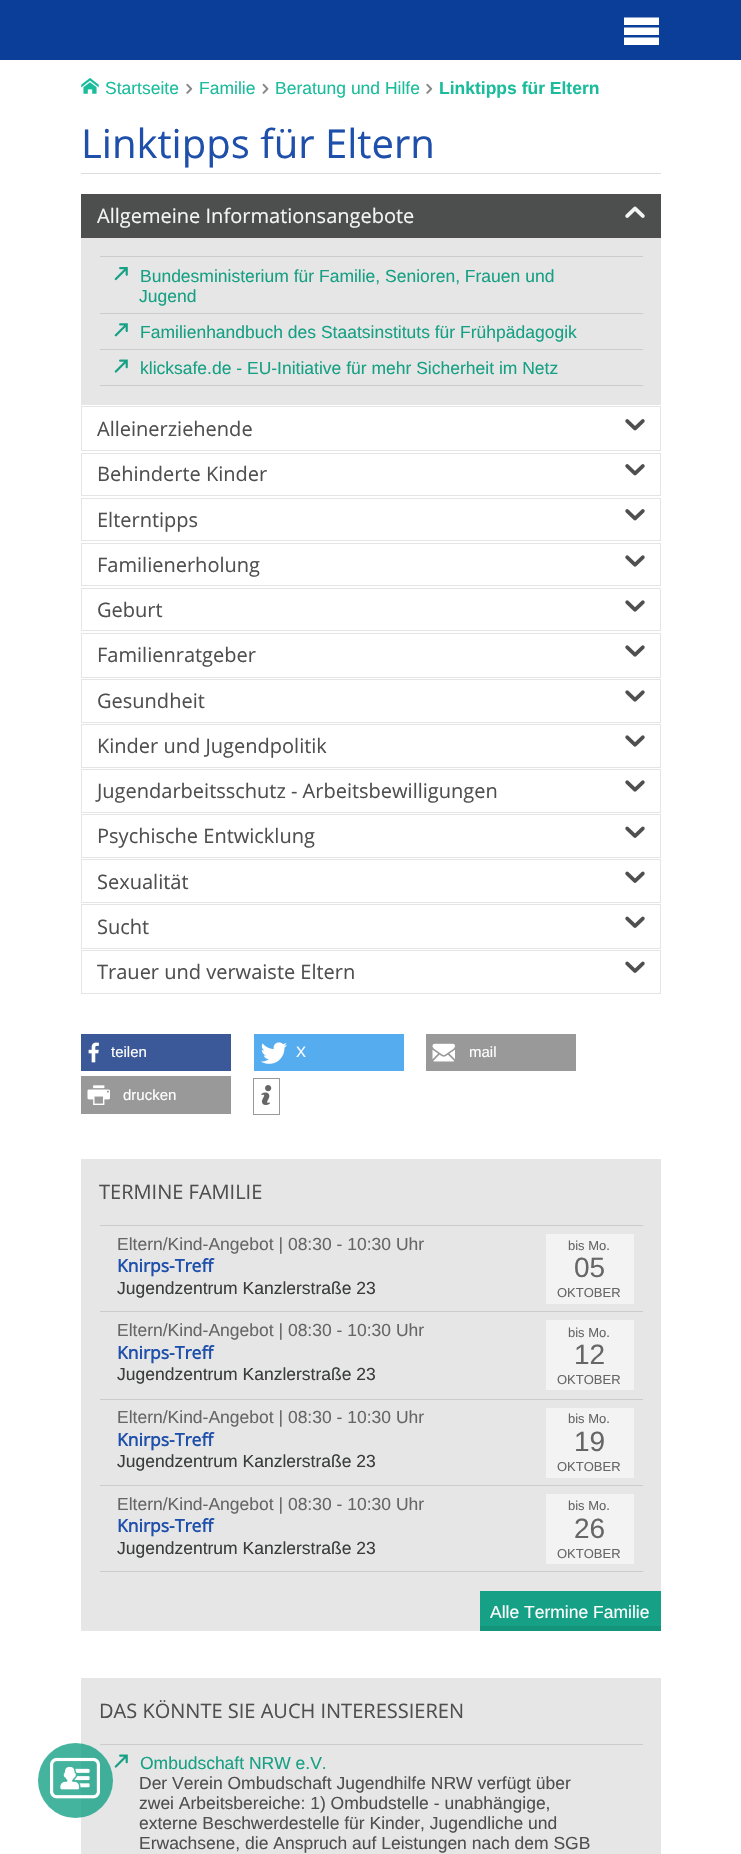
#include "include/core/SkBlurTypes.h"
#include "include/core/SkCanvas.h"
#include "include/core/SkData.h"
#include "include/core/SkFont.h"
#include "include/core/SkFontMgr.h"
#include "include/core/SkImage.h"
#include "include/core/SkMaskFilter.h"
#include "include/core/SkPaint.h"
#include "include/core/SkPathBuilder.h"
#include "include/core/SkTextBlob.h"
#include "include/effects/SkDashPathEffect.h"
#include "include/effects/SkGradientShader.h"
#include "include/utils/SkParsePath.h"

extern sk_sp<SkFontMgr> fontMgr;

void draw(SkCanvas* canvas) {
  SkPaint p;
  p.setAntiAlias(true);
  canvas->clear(SK_ColorWHITE);
  p.setColor(SkColorSetRGB(11, 62, 153));
  canvas->drawRect(SkRect::MakeLTRB(0, 0, 741, 60), p);
  p.setColor(SK_ColorWHITE);
  canvas->drawPath(SkPathBuilder().moveTo(624, 17.5f).lineTo(659, 17.5f).lineTo(659, 25).lineTo(624, 25).close().moveTo(624, 27.5f).lineTo(659, 27.5f).lineTo(659, 35).lineTo(624, 35).close().moveTo(624, 37.5f).lineTo(659, 37.5f).lineTo(659, 45).lineTo(624, 45).close().detach(), p);
  p.setColor(SkColorSetRGB(230, 230, 230));
  canvas->drawRect(SkRect::MakeLTRB(81, 1678, 661, 1854), p);
  p.setColor(SkColorSetRGB(204, 204, 204));
  canvas->drawRect(SkRect::MakeLTRB(100, 1744, 643, 1745), p);
  p.setColor(SkColorSetARGB(204, 22, 161, 134));
  canvas->drawCircle(75.5f, 1780.5f, 37.5f, p);
  canvas->drawImageRect(SkImages::DeferredFromEncodedData(SkData::MakeFromFileName("images/1.png")), SkRect::MakeLTRB(50, 1757, 100, 1799), SkSamplingOptions());
  canvas->drawImageRect(SkImages::DeferredFromEncodedData(SkData::MakeFromFileName("images/2.png")), SkRect::MakeLTRB(81, 78, 99, 94), SkSamplingOptions());
  canvas->drawImageRect(SkImages::DeferredFromEncodedData(SkData::MakeFromFileName("images/3.png")), SkRect::MakeLTRB(186, 83, 193, 94), SkSamplingOptions());
  canvas->drawImageRect(SkImages::DeferredFromEncodedData(SkData::MakeFromFileName("images/4.png")), SkRect::MakeLTRB(262, 83, 269, 94), SkSamplingOptions());
  canvas->drawImageRect(SkImages::DeferredFromEncodedData(SkData::MakeFromFileName("images/3.png")), SkRect::MakeLTRB(426, 83, 433, 94), SkSamplingOptions());
  p.setColor(SkColorSetRGB(221, 221, 221));
  canvas->drawRect(SkRect::MakeLTRB(81, 173, 661, 174), p);
  p.setColor(SkColorSetRGB(76, 79, 78));
  canvas->drawRect(SkRect::MakeLTRB(81, 194, 661, 238), p);
  canvas->drawImageRect(SkImages::DeferredFromEncodedData(SkData::MakeFromFileName("images/5.png")), SkRect::MakeLTRB(625, 206, 645, 218), SkSamplingOptions());
  p.setColor(SkColorSetRGB(230, 230, 230));
  canvas->drawRect(SkRect::MakeLTRB(81, 238, 661, 405), p);
  p.setColor(SkColorSetRGB(204, 204, 204));
  canvas->drawRect(SkRect::MakeLTRB(100, 385, 643, 386), p);
  canvas->drawRect(SkRect::MakeLTRB(100, 256, 643, 257), p);
  canvas->drawImageRect(SkImages::DeferredFromEncodedData(SkData::MakeFromFileName("images/6.png")), SkRect::MakeLTRB(114, 267, 128, 281), SkSamplingOptions());
  canvas->drawRect(SkRect::MakeLTRB(100, 313, 643, 314), p);
  canvas->drawImageRect(SkImages::DeferredFromEncodedData(SkData::MakeFromFileName("images/7.png")), SkRect::MakeLTRB(114, 323, 128, 337), SkSamplingOptions());
  canvas->drawRect(SkRect::MakeLTRB(100, 349, 643, 350), p);
  canvas->drawImageRect(SkImages::DeferredFromEncodedData(SkData::MakeFromFileName("images/8.png")), SkRect::MakeLTRB(114, 359, 128, 373), SkSamplingOptions());
  p.setStyle(SkPaint::kStroke_Style);
  p.setStrokeWidth(1);
  p.setColor(SkColorSetRGB(229, 229, 229));
  canvas->drawRect(SkRect::MakeLTRB(81.5f, 406.5f, 660.5f, 450.5f), p);
  canvas->drawImageRect(SkImages::DeferredFromEncodedData(SkData::MakeFromFileName("images/9.png")), SkRect::MakeLTRB(625, 419, 645, 431), SkSamplingOptions());
  canvas->drawRect(SkRect::MakeLTRB(81.5f, 453.5f, 660.5f, 495.5f), p);
  canvas->drawImageRect(SkImages::DeferredFromEncodedData(SkData::MakeFromFileName("images/9.png")), SkRect::MakeLTRB(625, 464, 645, 476), SkSamplingOptions());
  canvas->drawRect(SkRect::MakeLTRB(81.5f, 498.5f, 660.5f, 540.5f), p);
  canvas->drawImageRect(SkImages::DeferredFromEncodedData(SkData::MakeFromFileName("images/9.png")), SkRect::MakeLTRB(625, 509, 645, 521), SkSamplingOptions());
  canvas->drawRect(SkRect::MakeLTRB(81.5f, 543.5f, 660.5f, 585.5f), p);
  canvas->drawImageRect(SkImages::DeferredFromEncodedData(SkData::MakeFromFileName("images/10.png")), SkRect::MakeLTRB(625, 555, 645, 567), SkSamplingOptions());
  canvas->drawRect(SkRect::MakeLTRB(81.5f, 588.5f, 660.5f, 630.5f), p);
  canvas->drawImageRect(SkImages::DeferredFromEncodedData(SkData::MakeFromFileName("images/10.png")), SkRect::MakeLTRB(625, 600, 645, 612), SkSamplingOptions());
  canvas->drawRect(SkRect::MakeLTRB(81.5f, 633.5f, 660.5f, 677.5f), p);
  canvas->drawImageRect(SkImages::DeferredFromEncodedData(SkData::MakeFromFileName("images/10.png")), SkRect::MakeLTRB(625, 645, 645, 657), SkSamplingOptions());
  canvas->drawRect(SkRect::MakeLTRB(81.5f, 679.5f, 660.5f, 722.5f), p);
  canvas->drawImageRect(SkImages::DeferredFromEncodedData(SkData::MakeFromFileName("images/10.png")), SkRect::MakeLTRB(625, 690, 645, 702), SkSamplingOptions());
  canvas->drawRect(SkRect::MakeLTRB(81.5f, 724.5f, 660.5f, 767.5f), p);
  canvas->drawImageRect(SkImages::DeferredFromEncodedData(SkData::MakeFromFileName("images/10.png")), SkRect::MakeLTRB(625, 735, 645, 747), SkSamplingOptions());
  canvas->drawRect(SkRect::MakeLTRB(81.5f, 769.5f, 660.5f, 812.5f), p);
  canvas->drawImageRect(SkImages::DeferredFromEncodedData(SkData::MakeFromFileName("images/10.png")), SkRect::MakeLTRB(625, 780, 645, 792), SkSamplingOptions());
  canvas->drawRect(SkRect::MakeLTRB(81.5f, 814.5f, 660.5f, 857.5f), p);
  canvas->drawImageRect(SkImages::DeferredFromEncodedData(SkData::MakeFromFileName("images/11.png")), SkRect::MakeLTRB(625, 826, 645, 838), SkSamplingOptions());
  canvas->drawRect(SkRect::MakeLTRB(81.5f, 859.5f, 660.5f, 902.5f), p);
  canvas->drawImageRect(SkImages::DeferredFromEncodedData(SkData::MakeFromFileName("images/11.png")), SkRect::MakeLTRB(625, 871, 645, 883), SkSamplingOptions());
  canvas->drawRect(SkRect::MakeLTRB(81.5f, 904.5f, 660.5f, 948.5f), p);
  canvas->drawImageRect(SkImages::DeferredFromEncodedData(SkData::MakeFromFileName("images/11.png")), SkRect::MakeLTRB(625, 916, 645, 928), SkSamplingOptions());
  canvas->drawRect(SkRect::MakeLTRB(81.5f, 950.5f, 660.5f, 993.5f), p);
  canvas->drawImageRect(SkImages::DeferredFromEncodedData(SkData::MakeFromFileName("images/11.png")), SkRect::MakeLTRB(625, 961, 645, 973), SkSamplingOptions());
  p.setStyle(SkPaint::kFill_Style);
  p.setColor(SkColorSetRGB(59, 89, 152));
  canvas->drawRect(SkRect::MakeLTRB(81, 1034, 231, 1071), p);
  canvas->drawImageRect(SkImages::DeferredFromEncodedData(SkData::MakeFromFileName("images/12.png")), SkRect::MakeLTRB(88, 1042, 99, 1063), SkSamplingOptions());
  p.setColor(SkColorSetRGB(85, 172, 238));
  canvas->drawRect(SkRect::MakeLTRB(254, 1034, 404, 1071), p);
  canvas->drawImageRect(SkImages::DeferredFromEncodedData(SkData::MakeFromFileName("images/13.png")), SkRect::MakeLTRB(261, 1042, 287, 1064), SkSamplingOptions());
  p.setColor(SkColorSetRGB(153, 153, 153));
  canvas->drawRect(SkRect::MakeLTRB(426, 1034, 576, 1071), p);
  canvas->drawImageRect(SkImages::DeferredFromEncodedData(SkData::MakeFromFileName("images/14.png")), SkRect::MakeLTRB(432, 1043, 455, 1062), SkSamplingOptions());
  canvas->drawRect(SkRect::MakeLTRB(81, 1076, 231, 1114), p);
  canvas->drawImageRect(SkImages::DeferredFromEncodedData(SkData::MakeFromFileName("images/15.png")), SkRect::MakeLTRB(87, 1085, 110, 1105), SkSamplingOptions());
  p.setStyle(SkPaint::kStroke_Style);
  canvas->drawRect(SkRect::MakeLTRB(253.5f, 1078.5f, 279.5f, 1114.5f), p);
  canvas->drawImageRect(SkImages::DeferredFromEncodedData(SkData::MakeFromFileName("images/16.png")), SkRect::MakeLTRB(261, 1085, 272, 1105), SkSamplingOptions());
  p.setStyle(SkPaint::kFill_Style);
  p.setColor(SkColorSetRGB(230, 230, 230));
  canvas->drawRect(SkRect::MakeLTRB(81, 1159, 661, 1631), p);
  p.setColor(SkColorSetRGB(204, 204, 204));
  canvas->drawRect(SkRect::MakeLTRB(100, 1571, 643, 1572), p);
  canvas->drawRect(SkRect::MakeLTRB(100, 1225, 643, 1226), p);
  p.setColor(SkColorSetRGB(243, 243, 243));
  canvas->drawRect(SkRect::MakeLTRB(546, 1234, 634, 1304), p);
  p.setColor(SkColorSetRGB(204, 204, 204));
  canvas->drawRect(SkRect::MakeLTRB(100, 1311, 643, 1312), p);
  p.setColor(SkColorSetRGB(243, 243, 243));
  canvas->drawRect(SkRect::MakeLTRB(546, 1320, 634, 1390), p);
  p.setColor(SkColorSetRGB(204, 204, 204));
  canvas->drawRect(SkRect::MakeLTRB(100, 1399, 643, 1400), p);
  p.setColor(SkColorSetRGB(243, 243, 243));
  canvas->drawRect(SkRect::MakeLTRB(546, 1408, 634, 1478), p);
  p.setColor(SkColorSetRGB(204, 204, 204));
  canvas->drawRect(SkRect::MakeLTRB(100, 1485, 643, 1486), p);
  p.setColor(SkColorSetRGB(243, 243, 243));
  canvas->drawRect(SkRect::MakeLTRB(546, 1494, 634, 1564), p);
  p.setColor(SkColorSetRGB(22, 161, 134));
  canvas->drawRect(SkRect::MakeLTRB(480, 1591, 661, 1626), p);
  p.setColor(SkColorSetRGB(20, 148, 123));
  canvas->drawRect(SkRect::MakeLTRB(480, 1626, 661, 1631), p);
  canvas->drawImageRect(SkImages::DeferredFromEncodedData(SkData::MakeFromFileName("images/8.png")), SkRect::MakeLTRB(114, 1754, 128, 1768), SkSamplingOptions());
  SkFont font1(fontMgr->matchFamilyStyle("Liberation Sans", SkFontStyle::Normal()), 17.5f);
  font1.setSubpixel(true);
  p.setColor(SkColorSetRGB(26, 188, 156));
  canvas->drawString("Startseite", 105, 94, font1, p);
  canvas->drawString("Familie", 199, 94, font1, p);
  canvas->drawString("Beratung und Hilfe", 275, 94, font1, p);
  SkFont font2(fontMgr->matchFamilyStyle("Liberation Sans", SkFontStyle::Bold()), 17.5f);
  font2.setSubpixel(true);
  canvas->drawString("Linktipps für Eltern", 439, 94, font2, p);
  SkFont font3(fontMgr->matchFamilyStyle("Open Sans", SkFontStyle::Normal()), 40);
  font3.setSubpixel(true);
  p.setColor(SkColorSetRGB(29, 79, 171));
  canvas->drawString("Linktipps für Eltern", 81, 158, font3, p);
  SkFont font4(fontMgr->matchFamilyStyle("Open Sans", SkFontStyle::Normal()), 20);
  font4.setSubpixel(true);
  p.setColor(SkColorSetRGB(244, 244, 244));
  canvas->drawString("Allgemeine Informationsangebote", 97, 223, font4, p);
  p.setColor(SkColorSetRGB(22, 160, 132));
  canvas->drawString("Bundesministerium für Familie, Senioren, Frauen und", 140, 282, font1, p);
  canvas->drawString("Jugend", 139, 302, font1, p);
  canvas->drawString("Familienhandbuch des Staatsinstituts für Frühpädagogik", 140, 338, font1, p);
  canvas->drawString("klicksafe.de - EU-Initiative für mehr Sicherheit im Netz", 140, 374, font1, p);
  p.setColor(SkColorSetRGB(79, 79, 79));
  canvas->drawString("Alleinerziehende", 97, 436, font4, p);
  canvas->drawString("Behinderte Kinder", 97, 481, font4, p);
  canvas->drawString("Elterntipps", 97, 527, font4, p);
  canvas->drawString("Familienerholung", 97, 572, font4, p);
  canvas->drawString("Geburt", 97, 617, font4, p);
  canvas->drawString("Familienratgeber", 97, 662, font4, p);
  canvas->drawString("Gesundheit", 97, 708, font4, p);
  canvas->drawString("Kinder und Jugendpolitik", 97, 753, font4, p);
  canvas->drawString("Jugendarbeitsschutz - Arbeitsbewilligungen", 97, 798, font4, p);
  canvas->drawString("Psychische Entwicklung", 97, 843, font4, p);
  canvas->drawString("Sexualität", 97, 889, font4, p);
  canvas->drawString("Sucht", 97, 934, font4, p);
  canvas->drawString("Trauer und verwaiste Eltern", 97, 979, font4, p);
  SkFont font5(fontMgr->matchFamilyStyle("Liberation Sans", SkFontStyle::Normal()), 15);
  font5.setSubpixel(true);
  p.setColor(SK_ColorWHITE);
  canvas->drawString("teilen", 111, 1057, font5, p);
  canvas->drawString("X", 296, 1057, font5, p);
  canvas->drawString("mail", 469, 1057, font5, p);
  canvas->drawString("drucken", 123, 1100, font5, p);
  p.setColor(SkColorSetRGB(79, 79, 79));
  canvas->drawString("TERMINE FAMILIE", 99, 1199, font4, p);
  p.setColor(SkColorSetRGB(102, 102, 102));
  canvas->drawString("Eltern/Kind-Angebot | 08:30 - 10:30 Uhr", 117, 1250, font1, p);
  SkFont font6(fontMgr->matchFamilyStyle("Liberation Sans", SkFontStyle::Normal()), 13);
  font6.setSubpixel(true);
  canvas->drawString("bis Mo.", 568, 1250, font6, p);
  SkFont font7(fontMgr->matchFamilyStyle("Liberation Sans", SkFontStyle::Normal()), 28);
  font7.setSubpixel(true);
  canvas->drawString("05", 574, 1277, font7, p);
  canvas->drawString("OKTOBER", 557, 1297, font6, p);
  SkFont font8(fontMgr->matchFamilyStyle("Open Sans", SkFontStyle::Bold()), 17.5f);
  font8.setSubpixel(true);
  p.setColor(SkColorSetRGB(29, 79, 171));
  canvas->drawString("Knirps-Treff", 117, 1272, font8, p);
  p.setColor(SkColorSetRGB(58, 61, 60));
  canvas->drawString("Jugendzentrum Kanzlerstraße 23", 117, 1294, font1, p);
  p.setColor(SkColorSetRGB(102, 102, 102));
  canvas->drawString("Eltern/Kind-Angebot | 08:30 - 10:30 Uhr", 117, 1336, font1, p);
  canvas->drawString("bis Mo.", 568, 1337, font6, p);
  canvas->drawString("12", 574, 1364, font7, p);
  canvas->drawString("OKTOBER", 557, 1384, font6, p);
  p.setColor(SkColorSetRGB(29, 79, 171));
  canvas->drawString("Knirps-Treff", 117, 1359, font8, p);
  p.setColor(SkColorSetRGB(58, 61, 60));
  canvas->drawString("Jugendzentrum Kanzlerstraße 23", 117, 1380, font1, p);
  p.setColor(SkColorSetRGB(102, 102, 102));
  canvas->drawString("Eltern/Kind-Angebot | 08:30 - 10:30 Uhr", 117, 1423, font1, p);
  canvas->drawString("bis Mo.", 568, 1423, font6, p);
  canvas->drawString("19", 574, 1451, font7, p);
  canvas->drawString("OKTOBER", 557, 1471, font6, p);
  p.setColor(SkColorSetRGB(29, 79, 171));
  canvas->drawString("Knirps-Treff", 117, 1446, font8, p);
  p.setColor(SkColorSetRGB(58, 61, 60));
  canvas->drawString("Jugendzentrum Kanzlerstraße 23", 117, 1467, font1, p);
  p.setColor(SkColorSetRGB(102, 102, 102));
  canvas->drawString("Eltern/Kind-Angebot | 08:30 - 10:30 Uhr", 117, 1510, font1, p);
  canvas->drawString("bis Mo.", 568, 1510, font6, p);
  canvas->drawString("26", 574, 1538, font7, p);
  canvas->drawString("OKTOBER", 557, 1558, font6, p);
  p.setColor(SkColorSetRGB(29, 79, 171));
  canvas->drawString("Knirps-Treff", 117, 1532, font8, p);
  p.setColor(SkColorSetRGB(58, 61, 60));
  canvas->drawString("Jugendzentrum Kanzlerstraße 23", 117, 1554, font1, p);
  p.setColor(SK_ColorWHITE);
  canvas->drawString("Alle Termine Familie", 490, 1618, font1, p);
  p.setColor(SkColorSetRGB(79, 79, 79));
  canvas->drawString("DAS KÖNNTE SIE AUCH INTERESSIEREN", 99, 1718, font4, p);
  p.setColor(SkColorSetRGB(22, 160, 132));
  canvas->drawString("Ombudschaft NRW e.V.", 140, 1769, font1, p);
  p.setColor(SkColorSetRGB(79, 79, 79));
  canvas->drawString("Der Verein Ombudschaft Jugendhilfe NRW verfügt über", 139, 1789, font1, p);
  canvas->drawString("zwei Arbeitsbereiche: 1) Ombudstelle - unabhängige,", 139, 1809, font1, p);
  canvas->drawString("externe Beschwerdestelle für Kinder, Jugendliche und", 139, 1829, font1, p);
  canvas->drawString("Erwachsene, die Anspruch auf Leistungen nach dem SGB", 139, 1849, font1, p);
}
